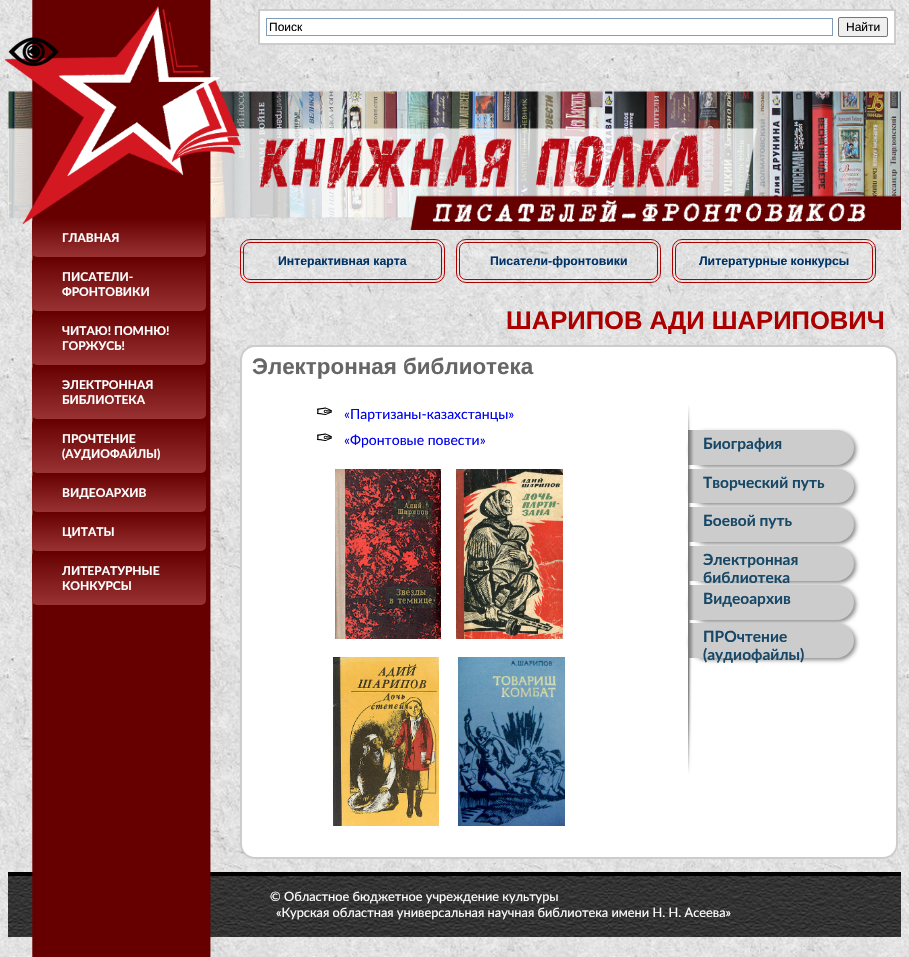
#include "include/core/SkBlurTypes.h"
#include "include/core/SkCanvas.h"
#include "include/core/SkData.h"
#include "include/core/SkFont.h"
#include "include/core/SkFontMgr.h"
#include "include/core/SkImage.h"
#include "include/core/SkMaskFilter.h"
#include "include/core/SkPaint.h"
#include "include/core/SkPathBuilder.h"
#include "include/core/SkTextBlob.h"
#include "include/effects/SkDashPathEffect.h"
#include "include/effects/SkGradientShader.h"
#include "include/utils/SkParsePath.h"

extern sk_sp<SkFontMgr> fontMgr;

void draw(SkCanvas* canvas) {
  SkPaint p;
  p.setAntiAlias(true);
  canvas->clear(SK_ColorWHITE);
  canvas->drawImageRect(SkImages::DeferredFromEncodedData(SkData::MakeFromFileName("images/1.png")), SkRect::MakeLTRB(0, 0, 909, 957), SkSamplingOptions());
  p.setColor(SK_ColorWHITE);
  canvas->drawRect(SkRect::MakeLTRB(259, 10, 895, 44), p);
  p.setStyle(SkPaint::kStroke_Style);
  p.setStrokeWidth(2);
  p.setColor(SkColorSetRGB(204, 204, 204));
  canvas->drawRect(SkRect::MakeLTRB(259, 10, 895, 44), p);
  p.setStrokeWidth(1);
  p.setColor(SkColorSetRGB(127, 157, 185));
  canvas->drawRect(SkRect::MakeLTRB(266.5f, 18.5f, 832.5f, 35.5f), p);
  p.setStyle(SkPaint::kFill_Style);
  p.setColor(SkColorSetRGB(239, 239, 239));
  canvas->drawRoundRect(SkRect::MakeLTRB(838.5f, 17.5f, 887.5f, 36.5f), 1.5f, 1.5f, p);
  p.setStyle(SkPaint::kStroke_Style);
  p.setColor(SkColorSetRGB(118, 118, 118));
  canvas->drawRoundRect(SkRect::MakeLTRB(838.5f, 17.5f, 887.5f, 36.5f), 1.5f, 1.5f, p);
  canvas->drawImageRect(SkImages::DeferredFromEncodedData(SkData::MakeFromFileName("images/3.png")), SkRect::MakeLTRB(8, 90, 901, 230), SkSamplingOptions());
  p.setColor(SkColorSetRGB(170, 0, 0));
  canvas->drawRoundRect(SkRect::MakeLTRB(240.5f, 239.5f, 444.5f, 282.5f), 9.5f, 9.5f, p);
  p.setStyle(SkPaint::kFill_Style);
  p.setColor(SK_ColorWHITE);
  canvas->drawRoundRect(SkRect::MakeLTRB(241, 346, 897, 858), 14, 14, p);
  p.setStyle(SkPaint::kStroke_Style);
  p.setStrokeWidth(2);
  p.setColor(SkColorSetRGB(204, 204, 204));
  canvas->drawRoundRect(SkRect::MakeLTRB(241, 346, 897, 858), 14, 14, p);
  canvas->drawImageRect(SkImages::DeferredFromEncodedData(SkData::MakeFromFileName("images/12.png")), SkRect::MakeLTRB(8, 876, 901, 937), SkSamplingOptions());
  p.setStyle(SkPaint::kFill_Style);
  p.setColor(SK_ColorBLACK);
  canvas->drawRect(SkRect::MakeLTRB(8, 872, 901, 876), p);
  canvas->drawImageRect(SkImages::DeferredFromEncodedData(SkData::MakeFromFileName("images/4.png")), SkRect::MakeLTRB(5, 0, 241, 957), SkSamplingOptions());
  canvas->drawImageRect(SkImages::DeferredFromEncodedData(SkData::MakeFromFileName("images/2.png")), SkRect::MakeLTRB(8, 37, 59, 67), SkSamplingOptions());
  {
    const SkColor colors[] = {SkColorSetRGB(102, 0, 0), SkColorSetRGB(153, 51, 51)};
    const float stops[] = {0, 1};
    const SkPoint ends[] = {{119, 218}, {119, 257}};
    p.setShader(SkGradientShader::MakeLinear(ends, colors, stops, 2, SkTileMode::kClamp));
    p.setAlpha(255);
  }
  canvas->drawRoundRect(SkRect::MakeLTRB(32, 218, 206, 257), 5, 5, p);
  {
    const SkColor colors[] = {SkColorSetRGB(102, 0, 0), SkColorSetRGB(153, 51, 51)};
    const float stops[] = {0, 1};
    const SkPoint ends[] = {{119, 257}, {119, 311}};
    p.setShader(SkGradientShader::MakeLinear(ends, colors, stops, 2, SkTileMode::kClamp));
    p.setAlpha(255);
  }
  canvas->drawRoundRect(SkRect::MakeLTRB(32, 257, 206, 311), 5, 5, p);
  {
    const SkColor colors[] = {SkColorSetRGB(102, 0, 0), SkColorSetRGB(153, 51, 51)};
    const float stops[] = {0, 1};
    const SkPoint ends[] = {{119, 311}, {119, 365}};
    p.setShader(SkGradientShader::MakeLinear(ends, colors, stops, 2, SkTileMode::kClamp));
    p.setAlpha(255);
  }
  canvas->drawRoundRect(SkRect::MakeLTRB(32, 311, 206, 365), 5, 5, p);
  {
    const SkColor colors[] = {SkColorSetRGB(102, 0, 0), SkColorSetRGB(153, 51, 51)};
    const float stops[] = {0, 1};
    const SkPoint ends[] = {{119, 365}, {119, 419}};
    p.setShader(SkGradientShader::MakeLinear(ends, colors, stops, 2, SkTileMode::kClamp));
    p.setAlpha(255);
  }
  canvas->drawRoundRect(SkRect::MakeLTRB(32, 365, 206, 419), 5, 5, p);
  {
    const SkColor colors[] = {SkColorSetRGB(102, 0, 0), SkColorSetRGB(153, 51, 51)};
    const float stops[] = {0, 1};
    const SkPoint ends[] = {{119, 419}, {119, 473}};
    p.setShader(SkGradientShader::MakeLinear(ends, colors, stops, 2, SkTileMode::kClamp));
    p.setAlpha(255);
  }
  canvas->drawRoundRect(SkRect::MakeLTRB(32, 419, 206, 473), 5, 5, p);
  {
    const SkColor colors[] = {SkColorSetRGB(102, 0, 0), SkColorSetRGB(153, 51, 51)};
    const float stops[] = {0, 1};
    const SkPoint ends[] = {{119, 473}, {119, 512}};
    p.setShader(SkGradientShader::MakeLinear(ends, colors, stops, 2, SkTileMode::kClamp));
    p.setAlpha(255);
  }
  canvas->drawRoundRect(SkRect::MakeLTRB(32, 473, 206, 512), 5, 5, p);
  {
    const SkColor colors[] = {SkColorSetRGB(102, 0, 0), SkColorSetRGB(153, 51, 51)};
    const float stops[] = {0, 1};
    const SkPoint ends[] = {{119, 512}, {119, 551}};
    p.setShader(SkGradientShader::MakeLinear(ends, colors, stops, 2, SkTileMode::kClamp));
    p.setAlpha(255);
  }
  canvas->drawRoundRect(SkRect::MakeLTRB(32, 512, 206, 551), 5, 5, p);
  {
    const SkColor colors[] = {SkColorSetRGB(102, 0, 0), SkColorSetRGB(153, 51, 51)};
    const float stops[] = {0, 1};
    const SkPoint ends[] = {{119, 551}, {119, 605}};
    p.setShader(SkGradientShader::MakeLinear(ends, colors, stops, 2, SkTileMode::kClamp));
    p.setAlpha(255);
  }
  canvas->drawRoundRect(SkRect::MakeLTRB(32, 551, 206, 605), 5, 5, p);
  p.setStyle(SkPaint::kStroke_Style);
  p.setStrokeWidth(1);
  p.setShader(nullptr);
  p.setColor(SkColorSetRGB(170, 0, 0));
  canvas->drawRoundRect(SkRect::MakeLTRB(243.5f, 242.5f, 441.5f, 279.5f), 6.5f, 6.5f, p);
  canvas->drawRoundRect(SkRect::MakeLTRB(456.5f, 239.5f, 660.5f, 282.5f), 9.5f, 9.5f, p);
  canvas->drawRoundRect(SkRect::MakeLTRB(459.5f, 242.5f, 657.5f, 279.5f), 6.5f, 6.5f, p);
  canvas->drawRoundRect(SkRect::MakeLTRB(672.5f, 239.5f, 875.5f, 282.5f), 9.5f, 9.5f, p);
  canvas->drawRoundRect(SkRect::MakeLTRB(675.5f, 242.5f, 872.5f, 279.5f), 6.5f, 6.5f, p);
  canvas->drawImageRect(SkImages::DeferredFromEncodedData(SkData::MakeFromFileName("images/5.png")), SkRect::MakeLTRB(335, 469, 441, 639), SkSamplingOptions());
  canvas->drawImageRect(SkImages::DeferredFromEncodedData(SkData::MakeFromFileName("images/6.png")), SkRect::MakeLTRB(456, 469, 563, 639), SkSamplingOptions());
  canvas->drawImageRect(SkImages::DeferredFromEncodedData(SkData::MakeFromFileName("images/7.png")), SkRect::MakeLTRB(333, 657, 439, 826), SkSamplingOptions());
  canvas->drawImageRect(SkImages::DeferredFromEncodedData(SkData::MakeFromFileName("images/8.png")), SkRect::MakeLTRB(458, 657, 565, 826), SkSamplingOptions());
  canvas->drawImageRect(SkImages::DeferredFromEncodedData(SkData::MakeFromFileName("images/9.png")), SkRect::MakeLTRB(688, 405, 692, 773), SkSamplingOptions());
  p.setStyle(SkPaint::kFill_Style);
  p.setColor(SkColorSetRGB(136, 136, 136));
  p.setMaskFilter(SkMaskFilter::MakeBlur(kNormal_SkBlurStyle, 2));
  canvas->drawRoundRect(SkRect::MakeLTRB(690, 432, 856, 467), 17.5f, 17.5f, p);
  p.setMaskFilter(nullptr);
  p.setColor(SkColorSetRGB(204, 204, 204));
  canvas->drawPath(SkPathBuilder().moveTo(688, 430).lineTo(836.5f, 430).cubicTo(846, 430, 854, 438, 854, 447.5f).cubicTo(854, 457, 846, 465, 836.5f, 465).lineTo(688, 465).close().detach(), p);
  canvas->drawImageRect(SkImages::DeferredFromEncodedData(SkData::MakeFromFileName("images/10.png")), SkRect::MakeLTRB(688, 430, 694, 465), SkSamplingOptions());
  p.setColor(SkColorSetRGB(136, 136, 136));
  p.setMaskFilter(SkMaskFilter::MakeBlur(kNormal_SkBlurStyle, 2));
  canvas->drawRoundRect(SkRect::MakeLTRB(690, 471, 856, 505), 17, 17, p);
  p.setMaskFilter(nullptr);
  p.setColor(SkColorSetRGB(204, 204, 204));
  canvas->drawPath(SkPathBuilder().moveTo(688, 469).lineTo(837, 469).cubicTo(846.5f, 469, 854, 476.5f, 854, 486).cubicTo(854, 495.5f, 846.5f, 503, 837, 503).lineTo(688, 503).close().detach(), p);
  canvas->drawImageRect(SkImages::DeferredFromEncodedData(SkData::MakeFromFileName("images/11.png")), SkRect::MakeLTRB(688, 469, 694, 503), SkSamplingOptions());
  p.setColor(SkColorSetRGB(136, 136, 136));
  p.setMaskFilter(SkMaskFilter::MakeBlur(kNormal_SkBlurStyle, 2));
  canvas->drawRoundRect(SkRect::MakeLTRB(690, 509, 856, 544), 17.5f, 17.5f, p);
  p.setMaskFilter(nullptr);
  p.setColor(SkColorSetRGB(204, 204, 204));
  canvas->drawPath(SkPathBuilder().moveTo(688, 507).lineTo(836.5f, 507).cubicTo(846, 507, 854, 515, 854, 524.5f).cubicTo(854, 534, 846, 542, 836.5f, 542).lineTo(688, 542).close().detach(), p);
  canvas->drawImageRect(SkImages::DeferredFromEncodedData(SkData::MakeFromFileName("images/10.png")), SkRect::MakeLTRB(688, 507, 694, 542), SkSamplingOptions());
  p.setColor(SkColorSetRGB(136, 136, 136));
  p.setMaskFilter(SkMaskFilter::MakeBlur(kNormal_SkBlurStyle, 2));
  canvas->drawRoundRect(SkRect::MakeLTRB(690, 548, 856, 583), 17.5f, 17.5f, p);
  p.setMaskFilter(nullptr);
  p.setColor(SkColorSetRGB(204, 204, 204));
  canvas->drawPath(SkPathBuilder().moveTo(688, 546).lineTo(836.5f, 546).cubicTo(846, 546, 854, 554, 854, 563.5f).cubicTo(854, 573, 846, 581, 836.5f, 581).lineTo(688, 581).close().detach(), p);
  canvas->drawImageRect(SkImages::DeferredFromEncodedData(SkData::MakeFromFileName("images/10.png")), SkRect::MakeLTRB(688, 546, 694, 581), SkSamplingOptions());
  p.setColor(SkColorSetRGB(136, 136, 136));
  p.setMaskFilter(SkMaskFilter::MakeBlur(kNormal_SkBlurStyle, 2));
  canvas->drawRoundRect(SkRect::MakeLTRB(690, 587, 856, 622), 17.5f, 17.5f, p);
  p.setMaskFilter(nullptr);
  p.setColor(SkColorSetRGB(204, 204, 204));
  canvas->drawPath(SkPathBuilder().moveTo(688, 585).lineTo(836.5f, 585).cubicTo(846, 585, 854, 593, 854, 602.5f).cubicTo(854, 612, 846, 620, 836.5f, 620).lineTo(688, 620).close().detach(), p);
  canvas->drawImageRect(SkImages::DeferredFromEncodedData(SkData::MakeFromFileName("images/10.png")), SkRect::MakeLTRB(688, 585, 694, 620), SkSamplingOptions());
  p.setColor(SkColorSetRGB(136, 136, 136));
  p.setMaskFilter(SkMaskFilter::MakeBlur(kNormal_SkBlurStyle, 2));
  canvas->drawRoundRect(SkRect::MakeLTRB(690, 625, 856, 660), 17.5f, 17.5f, p);
  p.setMaskFilter(nullptr);
  p.setColor(SkColorSetRGB(204, 204, 204));
  canvas->drawPath(SkPathBuilder().moveTo(688, 623).lineTo(836.5f, 623).cubicTo(846, 623, 854, 631, 854, 640.5f).cubicTo(854, 650, 846, 658, 836.5f, 658).lineTo(688, 658).close().detach(), p);
  canvas->drawImageRect(SkImages::DeferredFromEncodedData(SkData::MakeFromFileName("images/10.png")), SkRect::MakeLTRB(688, 623, 694, 658), SkSamplingOptions());
  SkFont font1(fontMgr->matchFamilyStyle("Liberation Sans", SkFontStyle::Normal()), 12);
  font1.setSubpixel(true);
  p.setColor(SK_ColorBLACK);
  canvas->drawString("Поиск", 269, 31, font1, p);
  canvas->drawString("Найти", 846, 31, font1, p);
  SkFont font2(fontMgr->matchFamilyStyle("Lato", SkFontStyle::Bold()), 12);
  font2.setSubpixel(true);
  p.setColor(SK_ColorWHITE);
  canvas->drawString("ГЛАВНАЯ", 62, 242, font2, p);
  canvas->drawString("ПИСАТЕЛИ-", 62, 281, font2, p);
  canvas->drawString("ФРОНТОВИКИ", 62, 296, font2, p);
  canvas->drawString("ЧИТАЮ! ПОМНЮ!", 62, 335, font2, p);
  canvas->drawString("ГОРЖУСЬ!", 62, 350, font2, p);
  canvas->drawString("ЭЛЕКТРОННАЯ", 62, 389, font2, p);
  canvas->drawString("БИБЛИОТЕКА", 62, 404, font2, p);
  canvas->drawString("ПРОЧТЕНИЕ", 62, 443, font2, p);
  canvas->drawString("(АУДИОФАЙЛЫ)", 62, 458, font2, p);
  canvas->drawString("ВИДЕОАРХИВ", 62, 497, font2, p);
  canvas->drawString("ЦИТАТЫ", 62, 536, font2, p);
  canvas->drawString("ЛИТЕРАТУРНЫЕ", 62, 575, font2, p);
  canvas->drawString("КОНКУРСЫ", 62, 590, font2, p);
  SkFont font3(fontMgr->matchFamilyStyle("Liberation Sans", SkFontStyle::Bold()), 12.25f);
  font3.setSubpixel(true);
  p.setColor(SkColorSetRGB(0, 51, 102));
  canvas->drawString("Интерактивная карта", 278, 265, font3, p);
  canvas->drawString("Писатели-фронтовики", 490, 265, font3, p);
  canvas->drawString("Литературные конкурсы", 699, 265, font3, p);
  SkFont font4(fontMgr->matchFamilyStyle("Liberation Sans", SkFontStyle::Bold()), 25.6f);
  font4.setSubpixel(true);
  p.setColor(SkColorSetRGB(170, 0, 0));
  canvas->drawString("ШАРИПОВ АДИ ШАРИПОВИЧ", 506, 329, font4, p);
  SkFont font5(fontMgr->matchFamilyStyle("Liberation Sans", SkFontStyle::Bold()), 22.4f);
  font5.setSubpixel(true);
  p.setColor(SkColorSetRGB(102, 102, 102));
  canvas->drawString("Электронная библиотека", 252, 374, font5, p);
  SkFont font6(fontMgr->matchFamilyStyle("DejaVu Sans", SkFontStyle::Normal()), 21);
  font6.setSubpixel(true);
  p.setColor(SK_ColorBLACK);
  canvas->drawString("✑", 316, 419, font6, p);
  SkFont font7(fontMgr->matchFamilyStyle("Lato", SkFontStyle::Normal()), 14);
  font7.setSubpixel(true);
  p.setColor(SkColorSetRGB(0, 0, 238));
  canvas->drawString("«Партизаны-казахстанцы»", 344, 419, font7, p);
  p.setColor(SK_ColorBLACK);
  canvas->drawString("✑", 316, 445, font6, p);
  p.setColor(SkColorSetRGB(0, 0, 238));
  canvas->drawString("«Фронтовые повести»", 344, 445, font7, p);
  SkFont font8(fontMgr->matchFamilyStyle("Lato", SkFontStyle::Bold()), 15.5f);
  font8.setSubpixel(true);
  p.setColor(SkColorSetRGB(23, 72, 103));
  canvas->drawString("Биография", 703, 449, font8, p);
  canvas->drawString("Творческий путь", 703, 488, font8, p);
  canvas->drawString("Боевой путь", 703, 526, font8, p);
  canvas->drawString("Электронная", 703, 565, font8, p);
  canvas->drawString("библиотека", 703, 583, font8, p);
  canvas->drawString("Видеоархив", 703, 604, font8, p);
  canvas->drawString("ПРОчтение", 703, 642, font8, p);
  canvas->drawString("(аудиофайлы)", 703, 660, font8, p);
  SkFont font9(fontMgr->matchFamilyStyle("Lato", SkFontStyle::Normal()), 12.8f);
  font9.setSubpixel(true);
  p.setColor(SK_ColorWHITE);
  canvas->drawString("© Областное бюджетное учреждение культуры", 270, 901, font9, p);
  canvas->drawString("«Курская областная универсальная научная библиотека имени Н. Н. Асеева»", 276, 917, font9, p);
}
